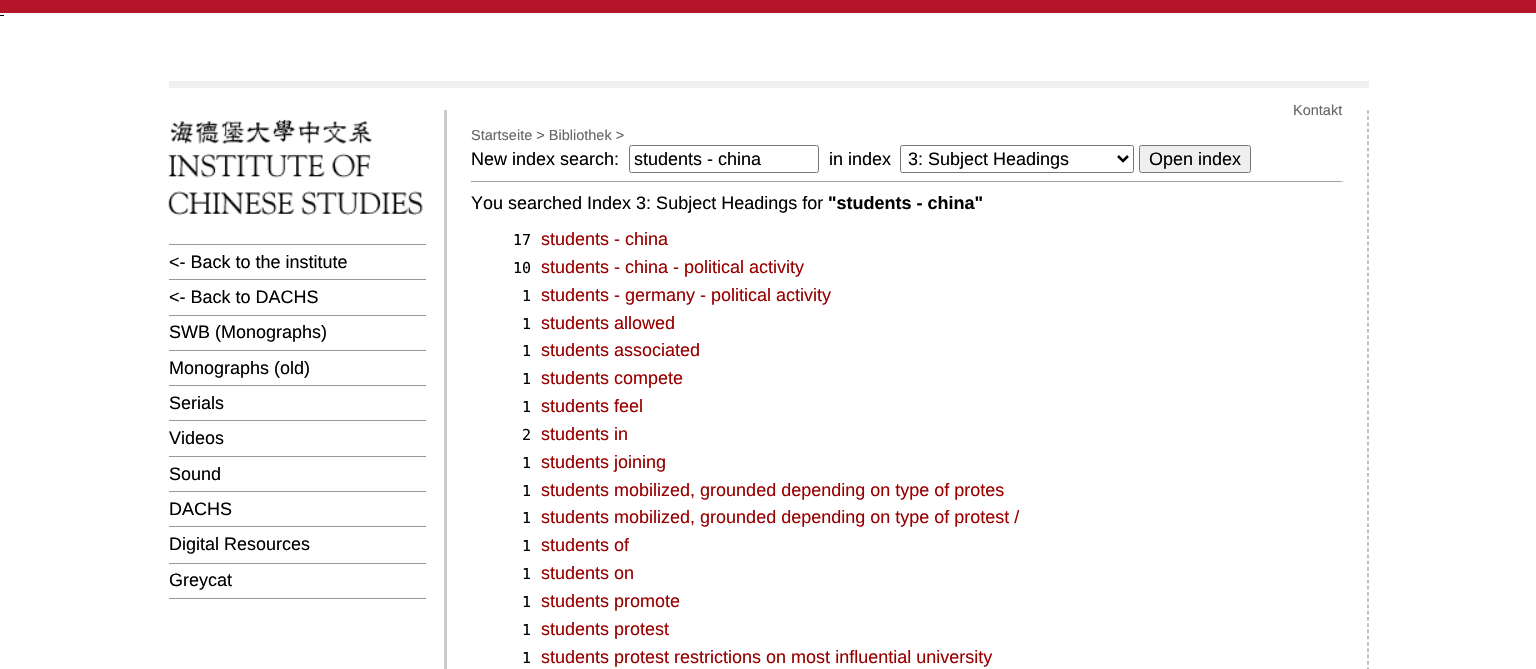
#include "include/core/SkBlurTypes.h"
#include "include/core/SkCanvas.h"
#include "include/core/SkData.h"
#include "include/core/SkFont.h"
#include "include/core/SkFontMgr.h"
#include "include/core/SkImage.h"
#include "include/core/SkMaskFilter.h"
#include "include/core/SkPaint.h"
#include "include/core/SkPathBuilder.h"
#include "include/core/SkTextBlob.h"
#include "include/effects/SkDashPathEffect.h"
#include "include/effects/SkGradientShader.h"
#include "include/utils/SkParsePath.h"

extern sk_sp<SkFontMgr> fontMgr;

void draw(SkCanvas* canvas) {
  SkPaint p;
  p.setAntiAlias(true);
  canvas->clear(SK_ColorWHITE);
  p.setColor(SkColorSetRGB(181, 21, 43));
  canvas->drawRect(SkRect::MakeLTRB(0, 0, 1536, 13), p);
  p.setColor(SK_ColorBLACK);
  canvas->drawRect(SkRect::MakeLTRB(0, 15, 4, 16), p);
  p.setColor(SkColorSetRGB(239, 239, 239));
  canvas->drawRect(SkRect::MakeLTRB(169, 81, 1369, 88), p);
  canvas->drawImageRect(SkImages::DeferredFromEncodedData(SkData::MakeFromFileName("images/1.png")), SkRect::MakeLTRB(168, 119, 423, 216), SkSamplingOptions());
  p.setColor(SkColorSetRGB(153, 153, 153));
  canvas->drawRect(SkRect::MakeLTRB(169, 244, 426, 245), p);
  canvas->drawRect(SkRect::MakeLTRB(169, 279, 426, 280), p);
  canvas->drawRect(SkRect::MakeLTRB(169, 315, 426, 316), p);
  canvas->drawRect(SkRect::MakeLTRB(169, 350, 426, 351), p);
  canvas->drawRect(SkRect::MakeLTRB(169, 385, 426, 386), p);
  canvas->drawRect(SkRect::MakeLTRB(169, 420, 426, 421), p);
  canvas->drawRect(SkRect::MakeLTRB(169, 456, 426, 457), p);
  canvas->drawRect(SkRect::MakeLTRB(169, 491, 426, 492), p);
  canvas->drawRect(SkRect::MakeLTRB(169, 526, 426, 527), p);
  canvas->drawRect(SkRect::MakeLTRB(169, 563, 426, 564), p);
  canvas->drawRect(SkRect::MakeLTRB(169, 598, 426, 599), p);
  p.setStyle(SkPaint::kStroke_Style);
  p.setStrokeWidth(1.2f);
  p.setPathEffect(SkDashPathEffect::Make({{3.75f, 2.51f}}, 0));
  canvas->drawPath(SkPathBuilder().moveTo(1368, 110).lineTo(1368, 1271).detach(), p);
  p.setPathEffect(nullptr);
  p.setStyle(SkPaint::kFill_Style);
  p.setColor(SkColorSetRGB(204, 204, 204));
  canvas->drawRect(SkRect::MakeLTRB(444, 110, 447, 669), p);
  p.setStyle(SkPaint::kStroke_Style);
  p.setStrokeWidth(1);
  p.setColor(SkColorSetRGB(118, 118, 118));
  canvas->drawRoundRect(SkRect::MakeLTRB(629.5f, 145.5f, 818.5f, 172.5f), 2, 2, p);
  canvas->drawRoundRect(SkRect::MakeLTRB(900.5f, 145.5f, 1133.5f, 172.5f), 2, 2, p);
  p.setStrokeWidth(2.5f);
  p.setColor(SK_ColorBLACK);
  canvas->drawPath(SkPathBuilder().moveTo(1118, 156).lineTo(1123, 161).lineTo(1128, 156).detach(), p);
  p.setStyle(SkPaint::kFill_Style);
  p.setColor(SkColorSetRGB(239, 239, 239));
  canvas->drawRoundRect(SkRect::MakeLTRB(1139.5f, 145.5f, 1250.5f, 172.5f), 2, 2, p);
  p.setStyle(SkPaint::kStroke_Style);
  p.setStrokeWidth(1);
  p.setColor(SkColorSetRGB(118, 118, 118));
  canvas->drawRoundRect(SkRect::MakeLTRB(1139.5f, 145.5f, 1250.5f, 172.5f), 2, 2, p);
  p.setStyle(SkPaint::kFill_Style);
  p.setColor(SkColorSetRGB(159, 159, 159));
  canvas->drawRect(SkRect::MakeLTRB(471, 181, 1343, 182), p);
  p.setColor(SkColorSetRGB(238, 238, 238));
  canvas->drawRect(SkRect::MakeLTRB(1341, 181, 1342, 182), p);
  SkFont font1(fontMgr->matchFamilyStyle("Liberation Sans", SkFontStyle::Normal()), 18);
  font1.setSubpixel(true);
  p.setColor(SK_ColorBLACK);
  canvas->drawString("<- Back to the institute", 169, 268, font1, p);
  canvas->drawString("<- Back to DACHS", 169, 303, font1, p);
  canvas->drawString("SWB (Monographs)", 169, 338, font1, p);
  canvas->drawString("Monographs (old)", 169, 374, font1, p);
  canvas->drawString("Serials", 169, 409, font1, p);
  canvas->drawString("Videos", 169, 444, font1, p);
  canvas->drawString("Sound", 169, 480, font1, p);
  canvas->drawString("DACHS", 169, 515, font1, p);
  canvas->drawString("Digital Resources", 169, 550, font1, p);
  canvas->drawString("Greycat", 169, 586, font1, p);
  SkFont font2(fontMgr->matchFamilyStyle("Liberation Sans", SkFontStyle::Normal()), 14.5f);
  font2.setSubpixel(true);
  p.setColor(SkColorSetRGB(102, 102, 102));
  canvas->drawString("Kontakt", 1293, 115, font2, p);
  canvas->drawString("Startseite > Bibliothek >", 471, 140, font2, p);
  p.setColor(SK_ColorBLACK);
  canvas->drawString("New index search:", 471, 165, font1, p);
  canvas->drawString("students - china", 634, 165, font1, p);
  canvas->drawString("in index", 829, 165, font1, p);
  canvas->drawString("3: Subject Headings", 908, 165, font1, p);
  canvas->drawString("Open index", 1149, 165, font1, p);
  canvas->drawString("You searched Index 3: Subject Headings for", 471, 209, font1, p);
  SkFont font3(fontMgr->matchFamilyStyle("Liberation Sans", SkFontStyle::Bold()), 18);
  font3.setSubpixel(true);
  canvas->drawString("\"students - china\"", 828, 209, font3, p);
  SkFont font4(fontMgr->matchFamilyStyle("DejaVu Sans Mono", SkFontStyle::Normal()), 15);
  font4.setSubpixel(true);
  canvas->drawString("17", 513, 245, font4, p);
  p.setColor(SkColorSetRGB(153, 0, 0));
  canvas->drawString("students - china", 541, 245, font1, p);
  p.setColor(SK_ColorBLACK);
  canvas->drawString("10", 513, 273, font4, p);
  p.setColor(SkColorSetRGB(153, 0, 0));
  canvas->drawString("students - china - political activity", 541, 273, font1, p);
  p.setColor(SK_ColorBLACK);
  canvas->drawString("1", 522, 301, font4, p);
  p.setColor(SkColorSetRGB(153, 0, 0));
  canvas->drawString("students - germany - political activity", 541, 301, font1, p);
  p.setColor(SK_ColorBLACK);
  canvas->drawString("1", 522, 329, font4, p);
  p.setColor(SkColorSetRGB(153, 0, 0));
  canvas->drawString("students allowed", 541, 329, font1, p);
  p.setColor(SK_ColorBLACK);
  canvas->drawString("1", 522, 356, font4, p);
  p.setColor(SkColorSetRGB(153, 0, 0));
  canvas->drawString("students associated", 541, 356, font1, p);
  p.setColor(SK_ColorBLACK);
  canvas->drawString("1", 522, 384, font4, p);
  p.setColor(SkColorSetRGB(153, 0, 0));
  canvas->drawString("students compete", 541, 384, font1, p);
  p.setColor(SK_ColorBLACK);
  canvas->drawString("1", 522, 412, font4, p);
  p.setColor(SkColorSetRGB(153, 0, 0));
  canvas->drawString("students feel", 541, 412, font1, p);
  p.setColor(SK_ColorBLACK);
  canvas->drawString("2", 522, 440, font4, p);
  p.setColor(SkColorSetRGB(153, 0, 0));
  canvas->drawString("students in", 541, 440, font1, p);
  p.setColor(SK_ColorBLACK);
  canvas->drawString("1", 522, 468, font4, p);
  p.setColor(SkColorSetRGB(153, 0, 0));
  canvas->drawString("students joining", 541, 468, font1, p);
  p.setColor(SK_ColorBLACK);
  canvas->drawString("1", 522, 496, font4, p);
  p.setColor(SkColorSetRGB(153, 0, 0));
  canvas->drawString("students mobilized, grounded depending on type of protes", 541, 496, font1, p);
  p.setColor(SK_ColorBLACK);
  canvas->drawString("1", 522, 523, font4, p);
  p.setColor(SkColorSetRGB(153, 0, 0));
  canvas->drawString("students mobilized, grounded depending on type of protest /", 541, 523, font1, p);
  p.setColor(SK_ColorBLACK);
  canvas->drawString("1", 522, 551, font4, p);
  p.setColor(SkColorSetRGB(153, 0, 0));
  canvas->drawString("students of", 541, 551, font1, p);
  p.setColor(SK_ColorBLACK);
  canvas->drawString("1", 522, 579, font4, p);
  p.setColor(SkColorSetRGB(153, 0, 0));
  canvas->drawString("students on", 541, 579, font1, p);
  p.setColor(SK_ColorBLACK);
  canvas->drawString("1", 522, 607, font4, p);
  p.setColor(SkColorSetRGB(153, 0, 0));
  canvas->drawString("students promote", 541, 607, font1, p);
  p.setColor(SK_ColorBLACK);
  canvas->drawString("1", 522, 635, font4, p);
  p.setColor(SkColorSetRGB(153, 0, 0));
  canvas->drawString("students protest", 541, 635, font1, p);
  p.setColor(SK_ColorBLACK);
  canvas->drawString("1", 522, 663, font4, p);
  p.setColor(SkColorSetRGB(153, 0, 0));
  canvas->drawString("students protest restrictions on most influential university", 541, 663, font1, p);
}
